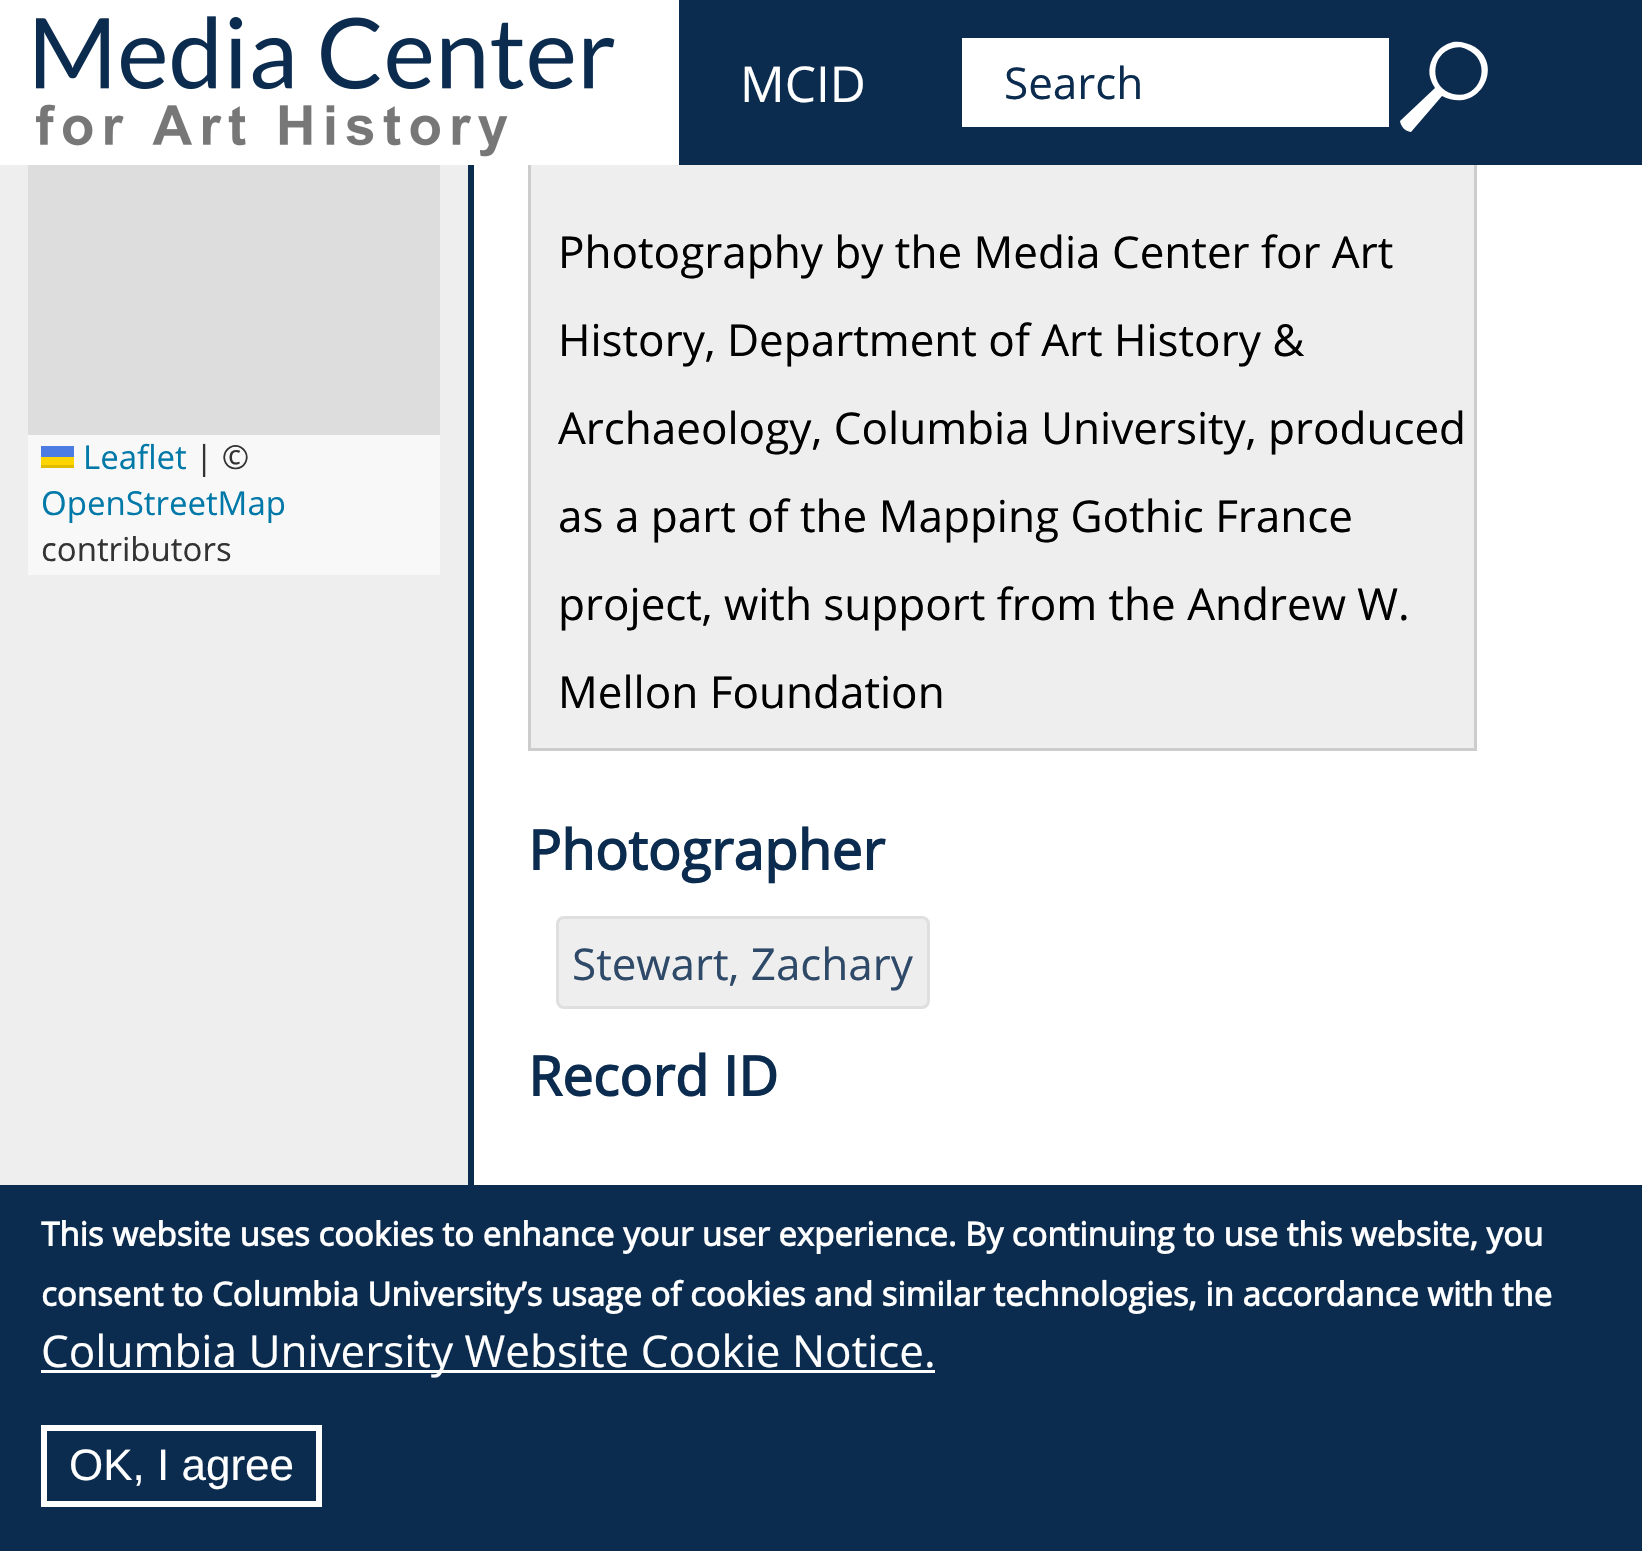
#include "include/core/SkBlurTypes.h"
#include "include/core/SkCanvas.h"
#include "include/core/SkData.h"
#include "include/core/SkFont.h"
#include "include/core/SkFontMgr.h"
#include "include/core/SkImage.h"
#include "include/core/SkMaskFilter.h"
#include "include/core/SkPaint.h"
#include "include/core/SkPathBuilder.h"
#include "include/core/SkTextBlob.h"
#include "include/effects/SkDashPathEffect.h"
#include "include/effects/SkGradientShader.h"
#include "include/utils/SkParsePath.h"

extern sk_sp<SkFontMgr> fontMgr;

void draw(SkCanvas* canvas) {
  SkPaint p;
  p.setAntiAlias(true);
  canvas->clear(SK_ColorWHITE);
  p.setColor(SkColorSetRGB(238, 238, 238));
  canvas->drawRect(SkRect::MakeLTRB(531, 165, 1474, 748), p);
  p.setStyle(SkPaint::kStroke_Style);
  p.setStrokeWidth(3);
  p.setColor(SkColorSetRGB(204, 204, 204));
  canvas->drawRect(SkRect::MakeLTRB(529.5f, 53.5f, 1475.5f, 749.5f), p);
  p.setStyle(SkPaint::kFill_Style);
  p.setColor(SkColorSetRGB(11, 44, 79));
  canvas->drawRect(SkRect::MakeLTRB(679, 0, 1642, 165), p);
  p.setColor(SK_ColorWHITE);
  canvas->drawRect(SkRect::MakeLTRB(528, 52, 679, 165), p);
  canvas->drawImageRect(SkImages::DeferredFromEncodedData(SkData::MakeFromFileName("images/1.png")), SkRect::MakeLTRB(35, 16, 615, 157), SkSamplingOptions());
  canvas->drawRect(SkRect::MakeLTRB(962, 38, 1389, 127), p);
  canvas->drawPath(SkPathBuilder().moveTo(1453, 42).cubicTo(1437, 46, 1427, 62, 1430, 77).cubicTo(1431, 81, 1433, 85, 1435, 88).lineTo(1400, 121).cubicTo(1401, 127, 1405, 131, 1411, 132).lineTo(1442, 96).cubicTo(1478, 115, 1505, 67, 1475, 47).cubicTo(1468, 43, 1460, 41, 1453, 42).close().moveTo(1466, 49).cubicTo(1494, 60, 1481, 101, 1453, 94).cubicTo(1429, 88, 1430, 54, 1453, 48).cubicTo(1458, 47, 1462, 47, 1466, 49).close().detach(), p);
  p.setColor(SkColorSetRGB(238, 238, 238));
  canvas->drawRect(SkRect::MakeLTRB(0, 165, 468, 1185), p);
  p.setColor(SkColorSetRGB(11, 44, 79));
  canvas->drawRect(SkRect::MakeLTRB(468, 165, 474, 1185), p);
  p.setColor(SkColorSetRGB(221, 221, 221));
  canvas->drawRect(SkRect::MakeLTRB(28, 165, 440, 435), p);
  p.setColor(SkColorSetRGB(248, 248, 248));
  canvas->drawRect(SkRect::MakeLTRB(28, 435, 440, 575), p);
  p.setColor(SkColorSetRGB(76, 123, 225));
  canvas->drawRect(SkRect::MakeLTRB(41, 446, 74, 457), p);
  p.setColor(SkColorSetRGB(255, 213, 0));
  canvas->drawRect(SkRect::MakeLTRB(41, 457, 74, 465), p);
  p.setColor(SkColorSetRGB(224, 188, 0));
  canvas->drawRect(SkRect::MakeLTRB(41, 465, 74, 468), p);
  p.setColor(SkColorSetRGB(238, 238, 238));
  canvas->drawRoundRect(SkRect::MakeLTRB(557.5f, 917.5f, 928.5f, 1007.5f), 6.5f, 6.5f, p);
  p.setStyle(SkPaint::kStroke_Style);
  p.setColor(SkColorSetRGB(223, 223, 223));
  canvas->drawRoundRect(SkRect::MakeLTRB(557.5f, 917.5f, 928.5f, 1007.5f), 6.5f, 6.5f, p);
  p.setStyle(SkPaint::kFill_Style);
  p.setColor(SkColorSetRGB(11, 44, 79));
  canvas->drawRect(SkRect::MakeLTRB(0, 1185, 1642, 1551), p);
  p.setColor(SK_ColorWHITE);
  canvas->drawRect(SkRect::MakeLTRB(41, 1370, 935, 1373), p);
  p.setStyle(SkPaint::kStroke_Style);
  p.setStrokeWidth(6);
  canvas->drawRect(SkRect::MakeLTRB(44, 1428, 319, 1504), p);
  SkFont font1(fontMgr->matchFamilyStyle("Open Sans", SkFontStyle::Normal()), 49.5f);
  font1.setSubpixel(true);
  p.setStyle(SkPaint::kFill_Style);
  canvas->drawString("MCID", 740, 102, font1, p);
  SkFont font2(fontMgr->matchFamilyStyle("Open Sans", SkFontStyle::Normal()), 44);
  font2.setSubpixel(true);
  p.setColor(SkColorSetRGB(11, 44, 79));
  canvas->drawString("Search", 1004, 99, font2, p);
  SkFont font3(fontMgr->matchFamilyStyle("Open Sans", SkFontStyle::Normal()), 33);
  font3.setSubpixel(true);
  p.setColor(SkColorSetRGB(0, 120, 168));
  canvas->drawString("Leaflet", 83, 469, font3, p);
  p.setColor(SkColorSetRGB(51, 51, 51));
  canvas->drawString("| ©", 195, 469, font3, p);
  p.setColor(SkColorSetRGB(0, 120, 168));
  canvas->drawString("OpenStreetMap", 41, 515, font3, p);
  p.setColor(SkColorSetRGB(51, 51, 51));
  canvas->drawString("contributors", 41, 561, font3, p);
  p.setColor(SK_ColorBLACK);
  canvas->drawString("Photography by the Media Center for Art", 558, 268, font2, p);
  canvas->drawString("History, Department of Art History &", 558, 356, font2, p);
  canvas->drawString("Archaeology, Columbia University, produced", 558, 444, font2, p);
  canvas->drawString("as a part of the Mapping Gothic France", 558, 532, font2, p);
  canvas->drawString("project, with support from the Andrew W.", 558, 620, font2, p);
  canvas->drawString("Mellon Foundation", 558, 708, font2, p);
  SkFont font4(fontMgr->matchFamilyStyle("Open Sans", SkFontStyle::Bold()), 55);
  font4.setSubpixel(true);
  p.setColor(SkColorSetRGB(11, 44, 79));
  canvas->drawString("Photographer", 528, 870, font4, p);
  p.setColor(SkColorSetRGB(46, 74, 104));
  canvas->drawString("Stewart, Zachary", 572, 980, font2, p);
  p.setColor(SkColorSetRGB(11, 44, 79));
  canvas->drawString("Record ID", 528, 1096, font4, p);
  SkFont font5(fontMgr->matchFamilyStyle("Open Sans", SkFontStyle::Bold()), 33);
  font5.setSubpixel(true);
  p.setColor(SK_ColorWHITE);
  canvas->drawString("This website uses cookies to enhance your user experience. By continuing to use this website, you", 41, 1246, font5, p);
  canvas->drawString("consent to Columbia University’s usage of cookies and similar technologies, in accordance with the", 41, 1306, font5, p);
  canvas->drawString("Columbia University Website Cookie Notice.", 41, 1367, font2, p);
  SkFont font6(fontMgr->matchFamilyStyle("Liberation Sans", SkFontStyle::Normal()), 44);
  font6.setSubpixel(true);
  canvas->drawString("OK, I agree", 69, 1480, font6, p);
}
